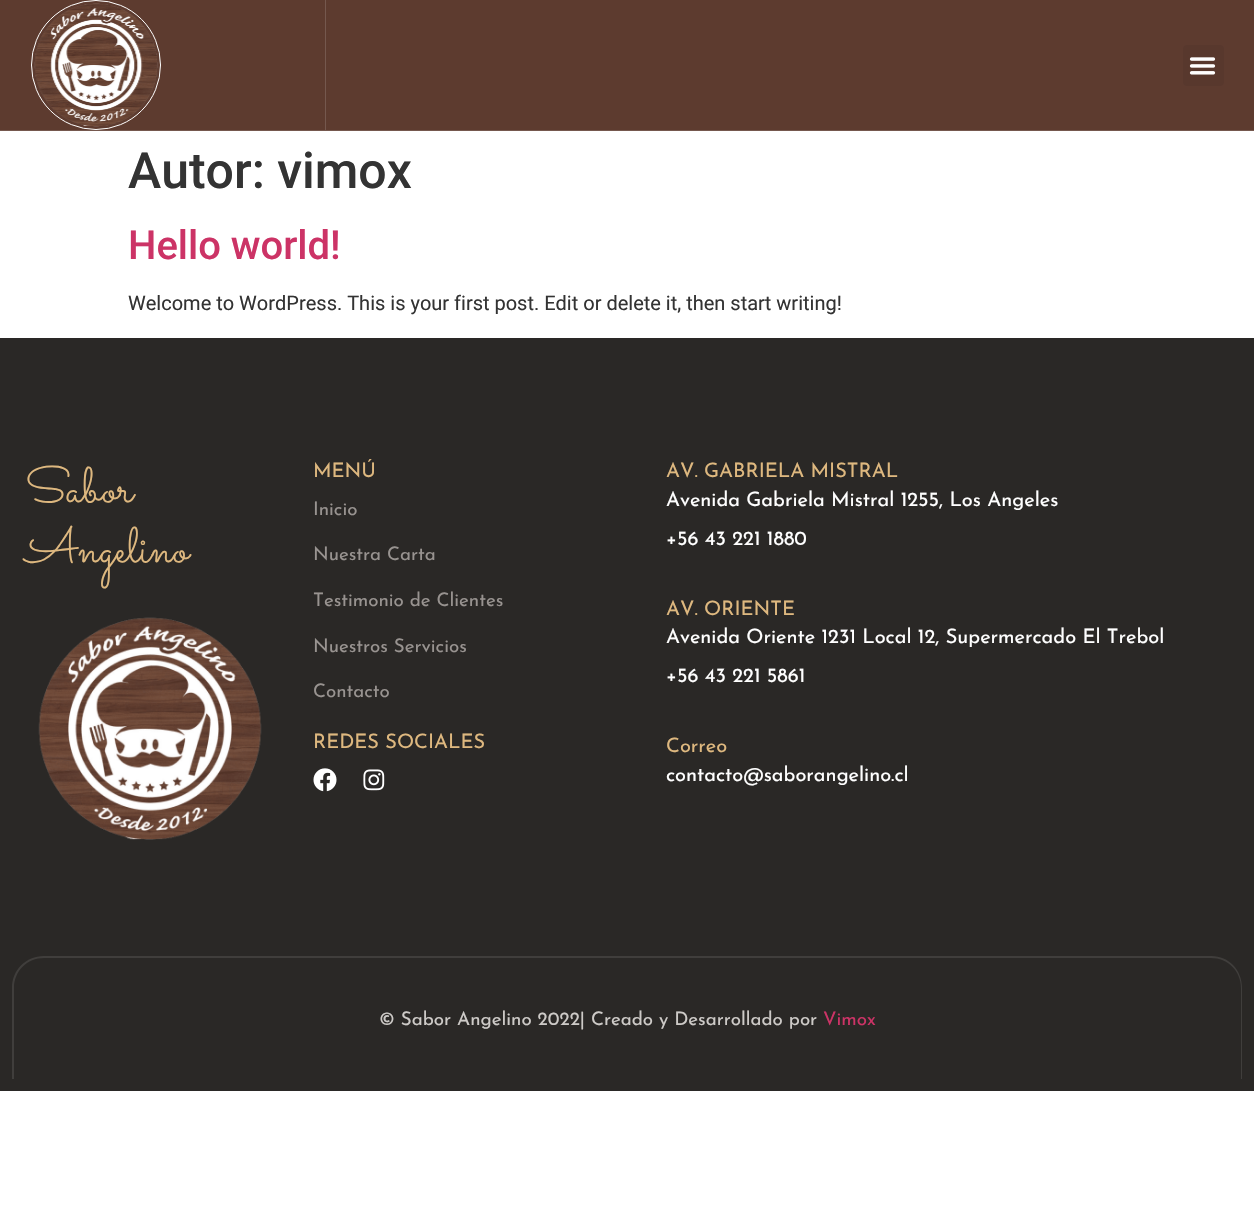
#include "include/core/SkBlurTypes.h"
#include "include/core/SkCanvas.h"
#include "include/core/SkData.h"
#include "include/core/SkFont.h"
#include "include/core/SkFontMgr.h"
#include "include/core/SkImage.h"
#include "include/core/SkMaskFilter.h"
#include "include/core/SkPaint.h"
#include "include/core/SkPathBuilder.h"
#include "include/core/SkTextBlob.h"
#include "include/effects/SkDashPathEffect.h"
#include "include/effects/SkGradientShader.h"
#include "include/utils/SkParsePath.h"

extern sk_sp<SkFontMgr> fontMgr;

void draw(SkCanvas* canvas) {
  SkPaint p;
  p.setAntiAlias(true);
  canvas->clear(SK_ColorWHITE);
  p.setColor(SkColorSetRGB(93, 59, 47));
  canvas->drawRect(SkRect::MakeLTRB(0, 0, 1254, 130), p);
  p.setColor(SkColorSetRGB(117, 88, 78));
  canvas->drawRect(SkRect::MakeLTRB(0, 130, 1254, 131), p);
  canvas->drawRect(SkRect::MakeLTRB(325, 0, 326, 130), p);
  p.setStyle(SkPaint::kStroke_Style);
  p.setStrokeWidth(1);
  p.setColor(SK_ColorWHITE);
  canvas->drawCircle(96, 65, 64.5f, p);
  canvas->drawImageRect(SkImages::DeferredFromEncodedData(SkData::MakeFromFileName("images/1.png")), SkRect::MakeLTRB(34, 3, 159, 127), SkSamplingOptions());
  p.setStyle(SkPaint::kFill_Style);
  p.setColor(SkColorSetRGB(88, 56, 45));
  canvas->drawRoundRect(SkRect::MakeLTRB(1183, 45, 1224, 86), 4, 4, p);
  canvas->drawImageRect(SkImages::DeferredFromEncodedData(SkData::MakeFromFileName("images/2.png")), SkRect::MakeLTRB(1189, 57, 1216, 75), SkSamplingOptions());
  p.setColor(SkColorSetRGB(42, 40, 38));
  canvas->drawRect(SkRect::MakeLTRB(0, 338, 1254, 1091), p);
  canvas->drawImageRect(SkImages::DeferredFromEncodedData(SkData::MakeFromFileName("images/3.png")), SkRect::MakeLTRB(38, 617, 262, 840), SkSamplingOptions());
  canvas->drawImageRect(SkImages::DeferredFromEncodedData(SkData::MakeFromFileName("images/4.png")), SkRect::MakeLTRB(313, 768, 337, 792), SkSamplingOptions());
  canvas->drawImageRect(SkImages::DeferredFromEncodedData(SkData::MakeFromFileName("images/5.png")), SkRect::MakeLTRB(363, 769, 385, 791), SkSamplingOptions());
  p.setColor(SkColorSetRGB(64, 62, 60));
  canvas->drawPath(SkPathBuilder(SkPathFillType::kEvenOdd).moveTo(44, 956).lineTo(1211, 956).cubicTo(1229, 956, 1242, 970, 1242, 988).lineTo(1242, 1079).lineTo(12, 1079).lineTo(12, 988).cubicTo(12, 970, 26, 956, 44, 956).close().moveTo(44, 958).lineTo(1211, 958).cubicTo(1228, 958, 1241, 971, 1241, 988).lineTo(1241, 1079).lineTo(14, 1079).lineTo(14, 988).cubicTo(14, 971, 27, 958, 44, 958).close().detach(), p);
  SkFont font1(fontMgr->matchFamilyStyle("Roboto", SkFontStyle(500, SkFontStyle::kNormal_Width, SkFontStyle::kUpright_Slant)), 50);
  font1.setSubpixel(true);
  p.setColor(SkColorSetRGB(51, 51, 51));
  canvas->drawString("Autor: vimox", 128, 188, font1, p);
  SkFont font2(fontMgr->matchFamilyStyle("Roboto", SkFontStyle(500, SkFontStyle::kNormal_Width, SkFontStyle::kUpright_Slant)), 40);
  font2.setSubpixel(true);
  p.setColor(SkColorSetRGB(204, 51, 102));
  canvas->drawString("Hello world!", 128, 259, font2, p);
  SkFont font3(fontMgr->matchFamilyStyle("Roboto", SkFontStyle::Normal()), 20);
  font3.setSubpixel(true);
  p.setColor(SkColorSetRGB(51, 51, 51));
  canvas->drawString("Welcome to WordPress. This is your first post. Edit or delete it, then start writing!", 128, 310, font3, p);
  SkFont font4(fontMgr->matchFamilyStyle("Sacramento", SkFontStyle::Normal()), 50);
  font4.setSubpixel(true);
  p.setColor(SkColorSetRGB(222, 184, 127));
  canvas->drawString("Sabor", 25, 502, font4, p);
  canvas->drawString("Angelino", 25, 562, font4, p);
  SkFont font5(fontMgr->matchFamilyStyle("Josefin Sans", SkFontStyle::Normal()), 20);
  font5.setSubpixel(true);
  canvas->drawString("MENÚ", 313, 477, font5, p);
  SkFont font6(fontMgr->matchFamilyStyle("Josefin Sans", SkFontStyle::Normal()), 18.75f);
  font6.setSubpixel(true);
  p.setColor(SkColorSetRGB(152, 147, 144));
  canvas->drawString("Inicio", 313, 515, font6, p);
  canvas->drawString("Nuestra Carta", 313, 560, font6, p);
  canvas->drawString("Testimonio de Clientes", 313, 606, font6, p);
  canvas->drawString("Nuestros Servicios", 313, 652, font6, p);
  canvas->drawString("Contacto", 313, 697, font6, p);
  p.setColor(SkColorSetRGB(222, 184, 127));
  canvas->drawString("REDES SOCIALES", 313, 748, font5, p);
  canvas->drawString("AV. GABRIELA MISTRAL", 666, 477, font5, p);
  p.setColor(SK_ColorWHITE);
  canvas->drawString("Avenida Gabriela Mistral 1255, Los Angeles", 666, 506, font5, p);
  canvas->drawString("+56 43 221 1880", 666, 545, font5, p);
  p.setColor(SkColorSetRGB(222, 184, 127));
  canvas->drawString("AV. ORIENTE", 666, 615, font5, p);
  p.setColor(SK_ColorWHITE);
  canvas->drawString("Avenida Oriente 1231 Local 12, Supermercado El Trebol", 666, 643, font5, p);
  canvas->drawString("+56 43 221 5861", 666, 682, font5, p);
  p.setColor(SkColorSetRGB(222, 184, 127));
  canvas->drawString("Correo", 666, 752, font5, p);
  p.setColor(SK_ColorWHITE);
  canvas->drawString("contacto@saborangelino.cl", 666, 781, font5, p);
  p.setColor(SkColorSetRGB(205, 202, 199));
  canvas->drawString("© Sabor Angelino 2022| Creado y Desarrollado por", 379, 1025, font6, p);
  p.setColor(SkColorSetRGB(204, 51, 102));
  canvas->drawString("Vimox", 823, 1025, font6, p);
}
